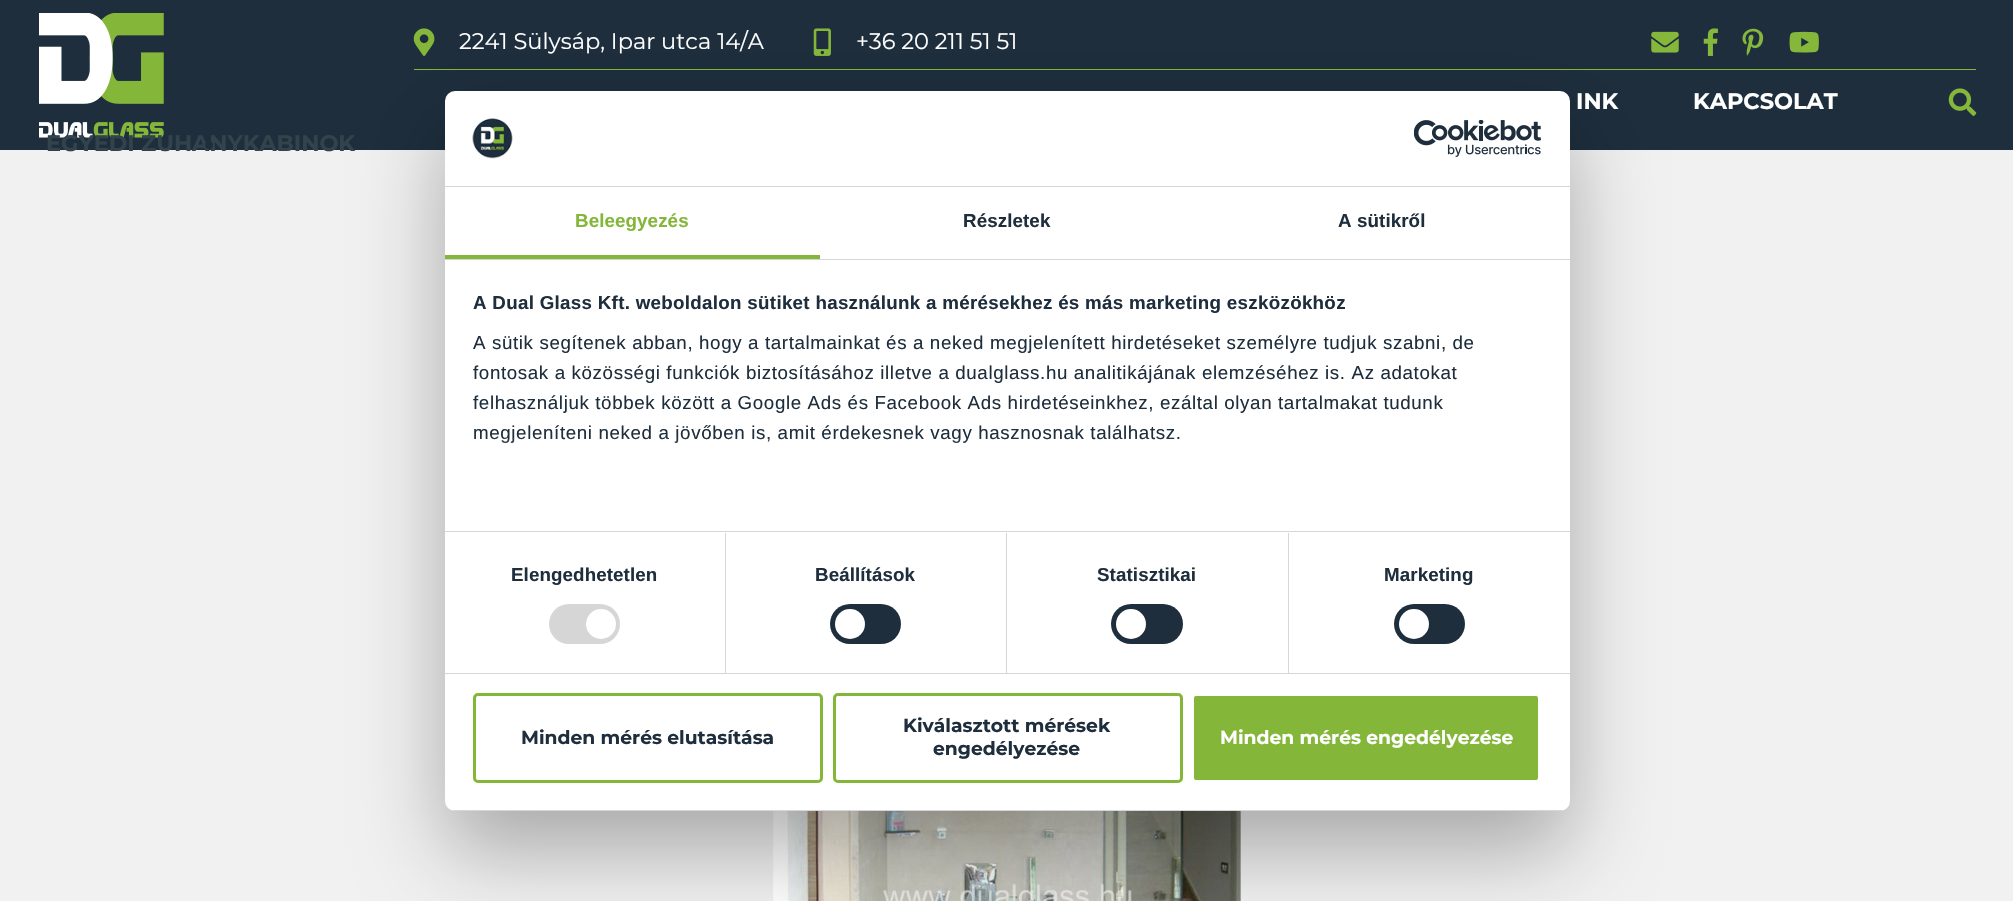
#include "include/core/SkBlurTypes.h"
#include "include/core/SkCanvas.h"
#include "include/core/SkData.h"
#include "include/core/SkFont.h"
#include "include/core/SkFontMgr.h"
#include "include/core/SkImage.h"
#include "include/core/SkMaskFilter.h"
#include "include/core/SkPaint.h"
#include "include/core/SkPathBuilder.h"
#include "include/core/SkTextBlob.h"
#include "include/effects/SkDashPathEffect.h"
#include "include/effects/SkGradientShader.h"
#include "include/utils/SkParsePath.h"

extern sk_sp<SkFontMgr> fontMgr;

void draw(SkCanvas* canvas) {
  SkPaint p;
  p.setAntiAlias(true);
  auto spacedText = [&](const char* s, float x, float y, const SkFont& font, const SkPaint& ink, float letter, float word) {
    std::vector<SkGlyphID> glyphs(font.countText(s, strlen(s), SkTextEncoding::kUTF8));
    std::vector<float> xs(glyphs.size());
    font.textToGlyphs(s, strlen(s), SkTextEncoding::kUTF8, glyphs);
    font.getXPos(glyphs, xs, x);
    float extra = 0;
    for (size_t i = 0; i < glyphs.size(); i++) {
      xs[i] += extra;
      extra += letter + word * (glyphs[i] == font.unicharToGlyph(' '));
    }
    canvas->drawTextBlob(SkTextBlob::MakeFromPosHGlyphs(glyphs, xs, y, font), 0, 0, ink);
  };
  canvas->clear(SkColorSetRGB(241, 241, 241));
  p.setColor(SkColorSetRGB(30, 46, 61));
  canvas->drawRect(SkRect::MakeLTRB(0, 0, 2013, 150), p);
  canvas->drawImageRect(SkImages::DeferredFromEncodedData(SkData::MakeFromFileName("images/1.png")), SkRect::MakeLTRB(39, 13, 164, 138), SkSamplingOptions());
  p.setColor(SkColorSetRGB(133, 183, 58));
  canvas->drawRect(SkRect::MakeLTRB(414, 69, 1976, 70), p);
  canvas->drawImageRect(SkImages::DeferredFromEncodedData(SkData::MakeFromFileName("images/2.png")), SkRect::MakeLTRB(413, 28, 435, 56), SkSamplingOptions());
  canvas->drawImageRect(SkImages::DeferredFromEncodedData(SkData::MakeFromFileName("images/3.png")), SkRect::MakeLTRB(813, 28, 831, 56), SkSamplingOptions());
  canvas->drawImageRect(SkImages::DeferredFromEncodedData(SkData::MakeFromFileName("images/4.png")), SkRect::MakeLTRB(1651, 31, 1679, 53), SkSamplingOptions());
  canvas->drawImageRect(SkImages::DeferredFromEncodedData(SkData::MakeFromFileName("images/5.png")), SkRect::MakeLTRB(1703, 28, 1718, 56), SkSamplingOptions());
  canvas->drawImageRect(SkImages::DeferredFromEncodedData(SkData::MakeFromFileName("images/6.png")), SkRect::MakeLTRB(1742, 28, 1764, 56), SkSamplingOptions());
  canvas->drawImageRect(SkImages::DeferredFromEncodedData(SkData::MakeFromFileName("images/7.png")), SkRect::MakeLTRB(1789, 31, 1819, 53), SkSamplingOptions());
  canvas->drawImageRect(SkImages::DeferredFromEncodedData(SkData::MakeFromFileName("images/8.png")), SkRect::MakeLTRB(1948, 88, 1977, 116), SkSamplingOptions());
  canvas->drawImageRect(SkImages::DeferredFromEncodedData(SkData::MakeFromFileName("images/9.png")), SkRect::MakeLTRB(773, 811, 1241, 901), SkSamplingOptions());
  p.setColor(SkColorSetARGB(77, 0, 0, 0));
  p.setMaskFilter(SkMaskFilter::MakeBlur(kNormal_SkBlurStyle, 42.5f));
  canvas->drawRoundRect(SkRect::MakeLTRB(445, 131, 1570, 851), 10, 10, p);
  p.setMaskFilter(nullptr);
  p.setColor(SK_ColorWHITE);
  canvas->drawRoundRect(SkRect::MakeLTRB(445, 91, 1570, 811), 10, 10, p);
  p.setColor(SkColorSetRGB(214, 214, 214));
  canvas->drawRect(SkRect::MakeLTRB(445, 186, 1570, 187), p);
  canvas->drawImageRect(SkImages::DeferredFromEncodedData(SkData::MakeFromFileName("images/10.png")), SkRect::MakeLTRB(472, 118, 513, 159), SkSamplingOptions());
  canvas->drawImageRect(SkImages::DeferredFromEncodedData(SkData::MakeFromFileName("images/11.png")), SkRect::MakeLTRB(1414, 120, 1541, 157), SkSamplingOptions());
  canvas->drawRect(SkRect::MakeLTRB(445, 259, 1570, 260), p);
  p.setColor(SkColorSetRGB(132, 182, 57));
  canvas->drawRect(SkRect::MakeLTRB(445, 255, 820, 259), p);
  p.setColor(SkColorSetRGB(214, 214, 214));
  canvas->drawRect(SkRect::MakeLTRB(445, 531, 1570, 532), p);
  canvas->drawRect(SkRect::MakeLTRB(445, 673, 1570, 674), p);
  canvas->drawRect(SkRect::MakeLTRB(725, 533, 726, 673), p);
  canvas->drawRoundRect(SkRect::MakeLTRB(549, 604, 620, 644), 20, 20, p);
  p.setColor(SK_ColorWHITE);
  canvas->drawCircle(601, 624, 15, p);
  p.setColor(SkColorSetRGB(214, 214, 214));
  canvas->drawRect(SkRect::MakeLTRB(1006, 533, 1007, 673), p);
  p.setColor(SkColorSetRGB(30, 46, 61));
  canvas->drawRoundRect(SkRect::MakeLTRB(830, 604, 901, 644), 20, 20, p);
  p.setColor(SK_ColorWHITE);
  canvas->drawCircle(850, 624, 15, p);
  p.setColor(SkColorSetRGB(214, 214, 214));
  canvas->drawRect(SkRect::MakeLTRB(1288, 533, 1289, 673), p);
  p.setColor(SkColorSetRGB(30, 46, 61));
  canvas->drawRoundRect(SkRect::MakeLTRB(1111, 604, 1183, 644), 20, 20, p);
  p.setColor(SK_ColorWHITE);
  canvas->drawCircle(1131, 624, 15, p);
  p.setColor(SkColorSetRGB(30, 46, 61));
  canvas->drawRoundRect(SkRect::MakeLTRB(1394, 604, 1465, 644), 20, 20, p);
  p.setColor(SK_ColorWHITE);
  canvas->drawCircle(1414, 624, 15, p);
  canvas->save();
  canvas->clipPath(SkPathBuilder().moveTo(455, 91).lineTo(1560, 91).cubicTo(1565.5f, 91, 1570, 95.5f, 1570, 101).lineTo(1570, 801).cubicTo(1570, 806.5f, 1565.5f, 811, 1560, 811).lineTo(455, 811).cubicTo(449.5f, 811, 445, 806.5f, 445, 801).lineTo(445, 101).cubicTo(445, 95.5f, 449.5f, 91, 455, 91).close().detach(), true);
  p.setColor(SkColorSetRGB(214, 214, 214));
  canvas->drawRect(SkRect::MakeLTRB(445, 810, 1570, 811), p);
  canvas->restore();
  p.setStyle(SkPaint::kStroke_Style);
  p.setStrokeWidth(3);
  p.setColor(SkColorSetRGB(132, 182, 57));
  canvas->drawRoundRect(SkRect::MakeLTRB(474.5f, 694.5f, 821.5f, 781.5f), 3.5f, 3.5f, p);
  canvas->drawRoundRect(SkRect::MakeLTRB(834.5f, 694.5f, 1181.5f, 781.5f), 3.5f, 3.5f, p);
  p.setStyle(SkPaint::kFill_Style);
  canvas->drawRoundRect(SkRect::MakeLTRB(1192.5f, 694.5f, 1539.5f, 781.5f), 3.5f, 3.5f, p);
  p.setStyle(SkPaint::kStroke_Style);
  p.setColor(SK_ColorWHITE);
  canvas->drawRoundRect(SkRect::MakeLTRB(1192.5f, 694.5f, 1539.5f, 781.5f), 3.5f, 3.5f, p);
  SkFont font1(fontMgr->matchFamilyStyle("Montserrat", SkFontStyle::Normal()), 22.5f);
  font1.setSubpixel(true);
  p.setStyle(SkPaint::kFill_Style);
  canvas->drawString("2241 Sülysáp, Ipar utca 14/A", 459, 49, font1, p);
  canvas->drawString("+36 20 211 51 51", 856, 49, font1, p);
  SkFont font2(fontMgr->matchFamilyStyle("Montserrat", SkFontStyle::Bold()), 22.5f);
  font2.setSubpixel(true);
  canvas->drawString("INK", 1576, 109, font2, p);
  canvas->drawString("KAPCSOLAT", 1693, 109, font2, p);
  p.setColor(SkColorSetRGB(51, 67, 76));
  canvas->drawString("EGYEDI ZUHANYKABINOK", 46, 151, font2, p);
  p.setColor(SkColorSetRGB(30, 46, 61));
  canvas->drawCircle(209, 145, 4, p);
  SkFont font3(fontMgr->matchFamilyStyle("Liberation Sans", SkFontStyle::Bold()), 18.75f);
  font3.setSubpixel(true);
  p.setColor(SkColorSetRGB(132, 182, 57));
  spacedText("Beleegyezés", 575, 227, font3, p, 0.1f, 0);
  p.setColor(SkColorSetRGB(30, 46, 61));
  spacedText("Részletek", 963, 227, font3, p, 0.1f, 0);
  spacedText("A sütikről", 1338, 227, font3, p, 0.1f, 0);
  spacedText("A Dual Glass Kft. weboldalon sütiket használunk a mérésekhez és más marketing eszközökhöz", 473, 309, font3, p, 0.3f, 0);
  SkFont font4(fontMgr->matchFamilyStyle("Liberation Sans", SkFontStyle::Normal()), 18.75f);
  font4.setSubpixel(true);
  spacedText("A sütik segítenek abban, hogy a tartalmainkat és a neked megjelenített hirdetéseket személyre tudjuk szabni, de", 473, 349, font4, p, 0.62f, 0);
  spacedText("fontosak a közösségi funkciók biztosításához illetve a dualglass.hu analitikájának elemzéséhez is. Az adatokat", 473, 379, font4, p, 0.62f, 0);
  spacedText("felhasználjuk többek között a Google Ads és Facebook Ads hirdetéseinkhez, ezáltal olyan tartalmakat tudunk", 473, 409, font4, p, 0.62f, 0);
  spacedText("megjeleníteni neked a jövőben is, amit érdekesnek vagy hasznosnak találhatsz.", 473, 439, font4, p, 0.62f, 0);
  {
    const SkColor colors[] = {SK_ColorWHITE, SkColorSetARGB(204, 255, 255, 255), SkColorSetARGB(0, 255, 255, 255)};
    const float stops[] = {0, 0.5f, 1};
    const SkPoint ends[] = {{994, 531}, {994, 437}};
    p.setShader(SkGradientShader::MakeLinear(ends, colors, stops, 3, SkTileMode::kClamp));
    p.setAlpha(255);
  }
  canvas->drawRect(SkRect::MakeLTRB(474, 438, 1179, 443), p);
  p.setShader(nullptr);
  p.setColor(SkColorSetRGB(30, 46, 61));
  spacedText("Elengedhetetlen", 511, 581, font3, p, 0.1f, 0);
  spacedText("Beállítások", 815, 581, font3, p, 0.1f, 0);
  spacedText("Statisztikai", 1097, 581, font3, p, 0.1f, 0);
  spacedText("Marketing", 1384, 581, font3, p, 0.1f, 0);
  SkFont font5(fontMgr->matchFamilyStyle("Montserrat", SkFontStyle::Bold()), 18.75f);
  font5.setSubpixel(true);
  canvas->drawString("Minden mérés elutasítása", 521, 744, font5, p);
  canvas->drawString("Kiválasztott mérések", 903, 732, font5, p);
  canvas->drawString("engedélyezése", 933, 755, font5, p);
  p.setColor(SK_ColorWHITE);
  canvas->drawString("Minden mérés engedélyezése", 1220, 744, font5, p);
}
